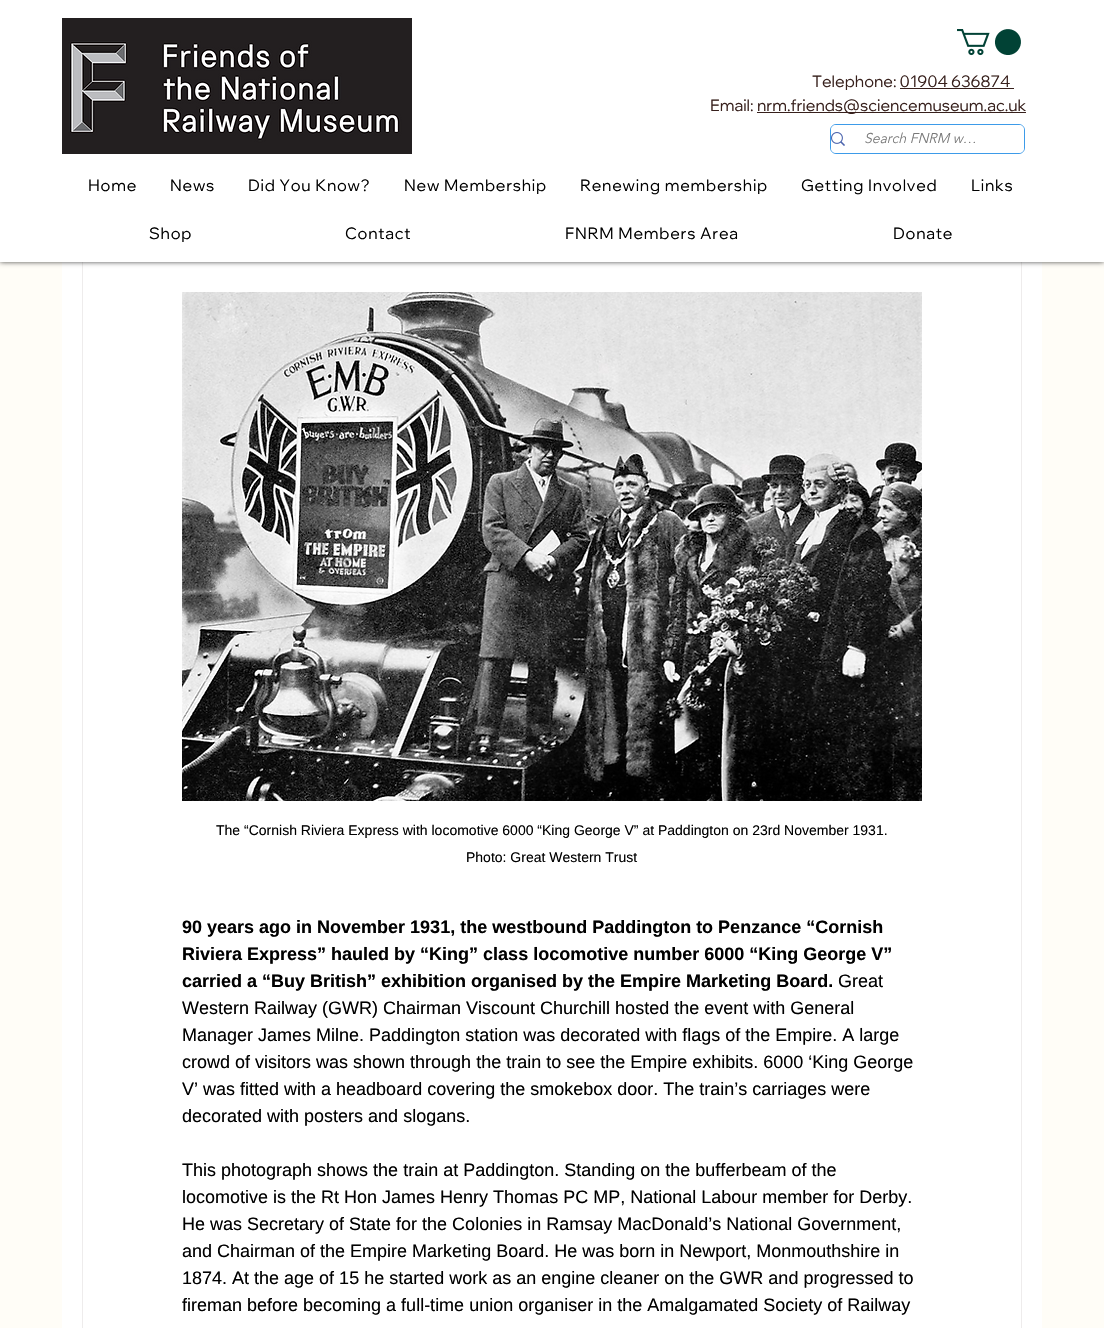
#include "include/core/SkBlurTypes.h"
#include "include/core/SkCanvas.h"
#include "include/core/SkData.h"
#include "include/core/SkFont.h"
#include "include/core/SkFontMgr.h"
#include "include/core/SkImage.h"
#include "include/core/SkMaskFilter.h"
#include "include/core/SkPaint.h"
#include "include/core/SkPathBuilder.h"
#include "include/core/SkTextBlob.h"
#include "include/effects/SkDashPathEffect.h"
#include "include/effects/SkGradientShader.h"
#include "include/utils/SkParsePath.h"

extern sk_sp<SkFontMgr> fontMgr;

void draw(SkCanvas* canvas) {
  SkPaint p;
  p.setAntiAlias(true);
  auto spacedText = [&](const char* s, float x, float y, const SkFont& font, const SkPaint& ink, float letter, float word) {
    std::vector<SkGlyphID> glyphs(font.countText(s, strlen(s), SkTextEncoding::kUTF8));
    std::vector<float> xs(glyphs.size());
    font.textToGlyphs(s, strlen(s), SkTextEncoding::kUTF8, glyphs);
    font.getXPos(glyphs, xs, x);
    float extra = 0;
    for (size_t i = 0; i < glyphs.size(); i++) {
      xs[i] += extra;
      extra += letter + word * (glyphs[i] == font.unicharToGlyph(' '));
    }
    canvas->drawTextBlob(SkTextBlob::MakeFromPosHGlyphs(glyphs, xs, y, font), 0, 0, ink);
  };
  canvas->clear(SkColorSetRGB(255, 253, 247));
  p.setColor(SK_ColorWHITE);
  canvas->drawRect(SkRect::MakeLTRB(62, 262, 1042, 1328), p);
  p.setStyle(SkPaint::kStroke_Style);
  p.setStrokeWidth(1);
  p.setColor(SkColorSetRGB(238, 236, 236));
  canvas->drawRect(SkRect::MakeLTRB(82.5f, 95.5f, 1021.5f, 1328.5f), p);
  p.setStyle(SkPaint::kFill_Style);
  p.setColor(SkColorSetARGB(179, 0, 0, 0));
  p.setMaskFilter(SkMaskFilter::MakeBlur(kNormal_SkBlurStyle, 2.5f));
  canvas->drawRect(SkRect::MakeLTRB(0, 0, 1104, 262), p);
  p.setMaskFilter(nullptr);
  p.setColor(SK_ColorWHITE);
  canvas->drawRect(SkRect::MakeLTRB(0, 0, 1104, 262), p);
  canvas->drawImageRect(SkImages::DeferredFromEncodedData(SkData::MakeFromFileName("images/1.png")), SkRect::MakeLTRB(62, 18, 412, 154), SkSamplingOptions());
  canvas->drawImageRect(SkImages::DeferredFromEncodedData(SkData::MakeFromFileName("images/2.png")), SkRect::MakeLTRB(957, 29, 1021, 56), SkSamplingOptions());
  p.setColor(SkColorSetRGB(55, 32, 28));
  canvas->drawRect(SkRect::MakeLTRB(900, 88, 1014, 89), p);
  canvas->drawRect(SkRect::MakeLTRB(757, 112, 1026, 113), p);
  p.setStyle(SkPaint::kStroke_Style);
  p.setColor(SkColorSetRGB(61, 155, 233));
  canvas->drawRoundRect(SkRect::MakeLTRB(830.5f, 124.5f, 1024.5f, 153.5f), 5.5f, 5.5f, p);
  p.setStyle(SkPaint::kFill_Style);
  p.setColor(SK_ColorWHITE);
  canvas->drawRoundRect(SkRect::MakeLTRB(831, 125, 1024, 153), 5, 5, p);
  canvas->drawImageRect(SkImages::DeferredFromEncodedData(SkData::MakeFromFileName("images/3.png")), SkRect::MakeLTRB(831, 132, 845, 146), SkSamplingOptions());
  canvas->drawImageRect(SkImages::DeferredFromEncodedData(SkData::MakeFromFileName("images/4.png")), SkRect::MakeLTRB(182, 292, 922, 801), SkSamplingOptions());
  SkFont font1(fontMgr->matchFamilyStyle("Wix Madefor Display", SkFontStyle::Normal()), 16);
  font1.setSubpixel(true);
  p.setColor(SkColorSetRGB(55, 32, 28));
  canvas->drawString("Telephone: 01904 636874", 812, 87, font1, p);
  canvas->drawString("Email:", 710, 111, font1, p);
  canvas->drawString("nrm.friends@sciencemuseum.ac.uk", 757, 111, font1, p);
  SkFont font2(fontMgr->matchFamilyStyle("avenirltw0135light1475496", SkFontStyle(300, SkFontStyle::kNormal_Width, SkFontStyle::kItalic_Slant)), 14);
  font2.setSubpixel(true);
  p.setColor(SkColorSetRGB(120, 120, 120));
  canvas->drawString("Search FNRM w…", 864, 143, font2, p);
  p.setColor(SK_ColorBLACK);
  spacedText("Home", 88, 191, font1, p, 0.75f, 0);
  spacedText("News", 170, 191, font1, p, 0.75f, 0);
  spacedText("Did You Know?", 248, 191, font1, p, 0.75f, 0);
  spacedText("New Membership", 404, 191, font1, p, 0.75f, 0);
  spacedText("Renewing membership", 580, 191, font1, p, 0.75f, 0);
  spacedText("Getting Involved", 801, 191, font1, p, 0.75f, 0);
  spacedText("Links", 971, 191, font1, p, 0.75f, 0);
  spacedText("Shop", 149, 239, font1, p, 0.75f, 0);
  spacedText("Contact", 345, 239, font1, p, 0.75f, 0);
  spacedText("FNRM Members Area", 565, 239, font1, p, 0.75f, 0);
  spacedText("Donate", 893, 239, font1, p, 0.75f, 0);
  SkFont font3(fontMgr->matchFamilyStyle("Liberation Sans", SkFontStyle::Normal()), 14);
  font3.setSubpixel(true);
  canvas->drawString("The “Cornish Riviera Express with locomotive 6000 “King George V” at Paddington on 23rd November 1931.", 216, 835, font3, p);
  canvas->drawString("Photo: Great Western Trust", 466, 862, font3, p);
  SkFont font4(fontMgr->matchFamilyStyle("Liberation Sans", SkFontStyle::Bold()), 18);
  font4.setSubpixel(true);
  canvas->drawString("90 years ago in November 1931, the westbound Paddington to Penzance “Cornish", 182, 933, font4, p);
  canvas->drawString("Riviera Express” hauled by “King” class locomotive number 6000 “King George V”", 182, 960, font4, p);
  canvas->drawString("carried a “Buy British” exhibition organised by the Empire Marketing Board.", 182, 987, font4, p);
  SkFont font5(fontMgr->matchFamilyStyle("Liberation Sans", SkFontStyle::Normal()), 18);
  font5.setSubpixel(true);
  canvas->drawString("Great", 838, 987, font5, p);
  canvas->drawString("Western Railway (GWR) Chairman Viscount Churchill hosted the event with General", 182, 1014, font5, p);
  canvas->drawString("Manager James Milne. Paddington station was decorated with flags of the Empire. A large", 182, 1041, font5, p);
  canvas->drawString("crowd of visitors was shown through the train to see the Empire exhibits. 6000 ‘King George", 182, 1068, font5, p);
  canvas->drawString("V’ was fitted with a headboard covering the smokebox door. The train’s carriages were", 182, 1095, font5, p);
  canvas->drawString("decorated with posters and slogans.", 182, 1122, font5, p);
  canvas->drawString("This photograph shows the train at Paddington. Standing on the bufferbeam of the", 182, 1176, font5, p);
  canvas->drawString("locomotive is the Rt Hon James Henry Thomas PC MP, National Labour member for Derby.", 182, 1203, font5, p);
  canvas->drawString("He was Secretary of State for the Colonies in Ramsay MacDonald’s National Government,", 182, 1230, font5, p);
  canvas->drawString("and Chairman of the Empire Marketing Board. He was born in Newport, Monmouthshire in", 182, 1257, font5, p);
  canvas->drawString("1874. At the age of 15 he started work as an engine cleaner on the GWR and progressed to", 182, 1284, font5, p);
  canvas->drawString("fireman before becoming a full-time union organiser in the Amalgamated Society of Railway", 182, 1311, font5, p);
}
